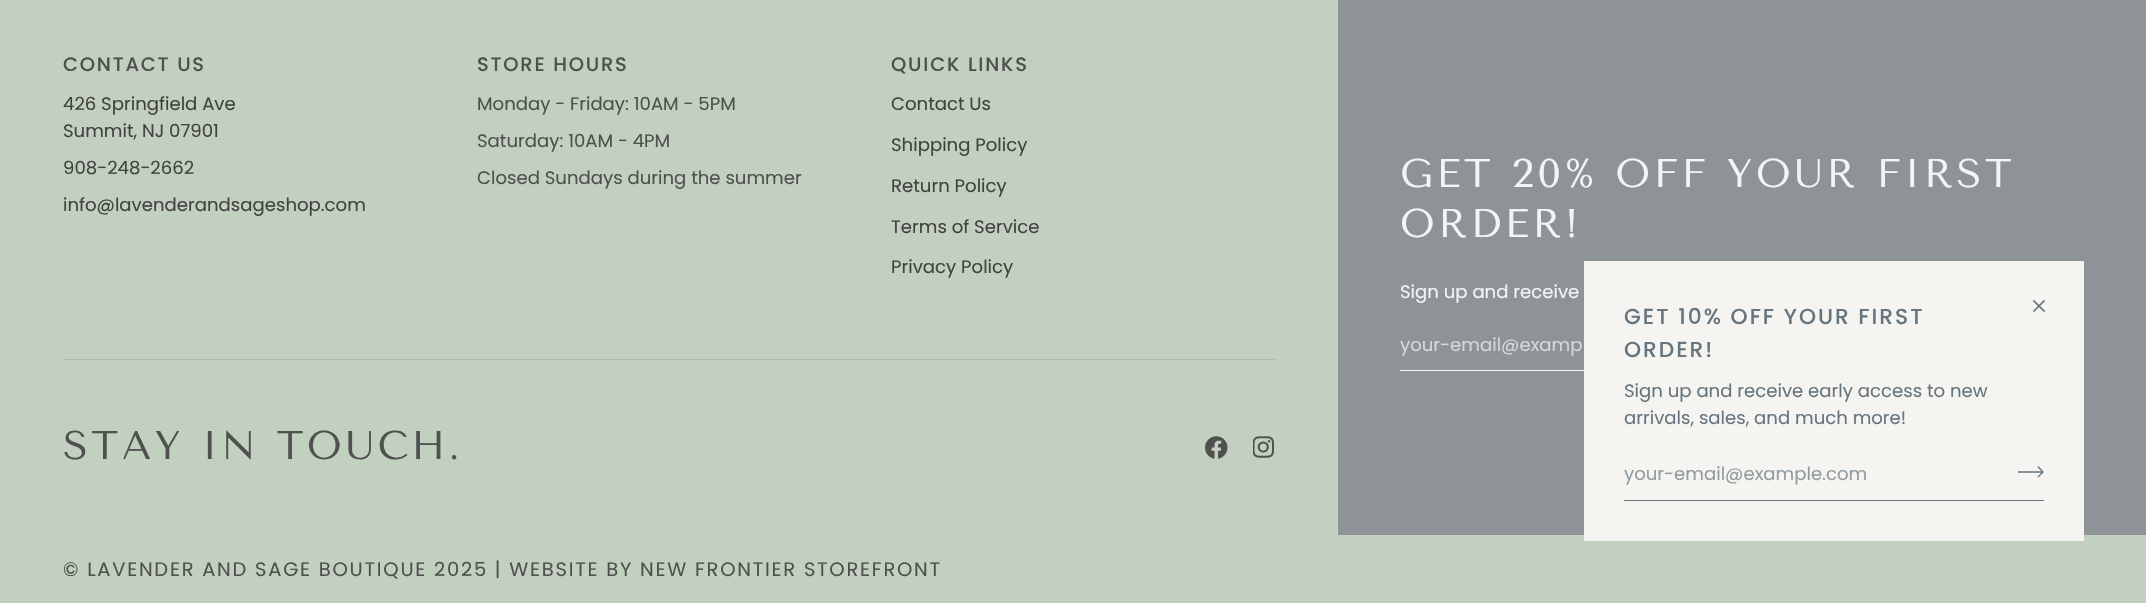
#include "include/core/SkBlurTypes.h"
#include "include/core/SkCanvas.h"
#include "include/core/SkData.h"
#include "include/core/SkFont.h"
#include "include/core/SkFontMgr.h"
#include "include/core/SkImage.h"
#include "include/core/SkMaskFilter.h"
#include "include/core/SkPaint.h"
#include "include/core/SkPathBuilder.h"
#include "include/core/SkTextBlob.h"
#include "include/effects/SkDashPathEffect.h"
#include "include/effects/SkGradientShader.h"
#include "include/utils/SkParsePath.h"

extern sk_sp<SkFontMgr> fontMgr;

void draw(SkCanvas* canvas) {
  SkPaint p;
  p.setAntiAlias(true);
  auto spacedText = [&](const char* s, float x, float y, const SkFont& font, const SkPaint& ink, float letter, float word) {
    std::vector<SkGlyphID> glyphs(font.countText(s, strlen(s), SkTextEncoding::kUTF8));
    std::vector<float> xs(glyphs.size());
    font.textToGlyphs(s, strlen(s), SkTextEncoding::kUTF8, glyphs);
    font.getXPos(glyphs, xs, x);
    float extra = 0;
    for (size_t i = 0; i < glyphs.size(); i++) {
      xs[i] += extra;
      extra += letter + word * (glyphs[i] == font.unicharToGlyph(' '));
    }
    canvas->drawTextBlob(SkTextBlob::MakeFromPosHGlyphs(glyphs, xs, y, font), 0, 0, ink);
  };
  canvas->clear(SkColorSetRGB(194, 208, 191));
  p.setColor(SkColorSetRGB(175, 187, 172));
  canvas->drawRect(SkRect::MakeLTRB(63, 359, 1275, 360), p);
  canvas->drawImageRect(SkImages::DeferredFromEncodedData(SkData::MakeFromFileName("images/1.png")), SkRect::MakeLTRB(1205, 436, 1228, 459), SkSamplingOptions());
  canvas->drawImageRect(SkImages::DeferredFromEncodedData(SkData::MakeFromFileName("images/2.png")), SkRect::MakeLTRB(1253, 436, 1274, 458), SkSamplingOptions());
  p.setColor(SkColorSetRGB(142, 147, 152));
  canvas->drawRect(SkRect::MakeLTRB(1338, 0, 2146, 535), p);
  p.setColor(SkColorSetRGB(244, 244, 245));
  canvas->drawRect(SkRect::MakeLTRB(1400, 370, 1584, 371), p);
  p.setColor(SkColorSetRGB(246, 244, 240));
  canvas->drawRect(SkRect::MakeLTRB(1584, 261, 2084, 541), p);
  p.setStyle(SkPaint::kStroke_Style);
  p.setStrokeWidth(1.7f);
  p.setStrokeCap(SkPaint::kSquare_Cap);
  p.setColor(SkColorSetRGB(101, 118, 128));
  canvas->drawPath(SkPathBuilder().moveTo(2044, 301).lineTo(2034, 311).moveTo(2034, 301).lineTo(2044, 311).detach(), p);
  p.setStyle(SkPaint::kFill_Style);
  canvas->drawRect(SkRect::MakeLTRB(1624, 500, 2044, 501), p);
  p.setStyle(SkPaint::kStroke_Style);
  p.setStrokeWidth(1.3f);
  p.setStrokeCap(SkPaint::kButt_Cap);
  canvas->drawPath(SkPathBuilder().moveTo(2038, 466.5f).lineTo(2043, 472).lineTo(2038, 477).moveTo(2018, 472).lineTo(2043, 472).detach(), p);
  SkFont font1(fontMgr->matchFamilyStyle("Poppins", SkFontStyle(500, SkFontStyle::kNormal_Width, SkFontStyle::kUpright_Slant)), 19.5f);
  font1.setSubpixel(true);
  p.setStyle(SkPaint::kFill_Style);
  p.setColor(SkColorSetRGB(79, 80, 79));
  spacedText("CONTACT US", 63, 71, font1, p, 1.75f, 0);
  SkFont font2(fontMgr->matchFamilyStyle("Poppins", SkFontStyle::Normal()), 18.1f);
  font2.setSubpixel(true);
  p.setColor(SkColorSetRGB(66, 66, 66));
  canvas->drawString("426 Springfield Ave", 63, 110, font2, p);
  canvas->drawString("Summit, NJ 07901", 63, 137, font2, p);
  canvas->drawString("908-248-2662", 63, 174, font2, p);
  canvas->drawString("info@lavenderandsageshop.com", 63, 211, font2, p);
  p.setColor(SkColorSetRGB(79, 80, 79));
  spacedText("STORE HOURS", 477, 71, font1, p, 1.75f, 0);
  canvas->drawString("Monday - Friday: 10AM - 5PM", 477, 110, font2, p);
  canvas->drawString("Saturday: 10AM - 4PM", 477, 147, font2, p);
  canvas->drawString("Closed Sundays during the summer", 477, 184, font2, p);
  spacedText("QUICK LINKS", 891, 71, font1, p, 1.75f, 0);
  p.setColor(SkColorSetRGB(66, 66, 66));
  canvas->drawString("Contact Us", 891, 110, font2, p);
  canvas->drawString("Shipping Policy", 891, 151, font2, p);
  canvas->drawString("Return Policy", 891, 192, font2, p);
  canvas->drawString("Terms of Service", 891, 233, font2, p);
  canvas->drawString("Privacy Policy", 891, 273, font2, p);
  SkFont font3(fontMgr->matchFamilyStyle("Tenor Sans", SkFontStyle::Normal()), 40);
  font3.setSubpixel(true);
  p.setColor(SkColorSetRGB(79, 80, 79));
  spacedText("STAY IN TOUCH.", 63, 459, font3, p, 3.6f, 0);
  p.setColor(SkColorSetRGB(244, 244, 245));
  spacedText("GET 20% OFF YOUR FIRST", 1400, 187, font3, p, 3.6f, 0);
  spacedText("ORDER!", 1400, 237, font3, p, 3.6f, 0);
  canvas->drawString("Sign up and receive", 1400, 298, font2, p);
  p.setColor(SkColorSetRGB(213, 215, 217));
  canvas->drawString("your-email@examp", 1400, 351, font2, p);
  SkFont font4(fontMgr->matchFamilyStyle("Poppins", SkFontStyle(500, SkFontStyle::kNormal_Width, SkFontStyle::kUpright_Slant)), 21.75f);
  font4.setSubpixel(true);
  p.setColor(SkColorSetRGB(101, 118, 128));
  spacedText("GET 10% OFF YOUR FIRST", 1624, 324, font4, p, 2, 0);
  spacedText("ORDER!", 1624, 357, font4, p, 2, 0);
  canvas->drawString("Sign up and receive early access to new", 1624, 397, font2, p);
  canvas->drawString("arrivals, sales, and much more!", 1624, 424, font2, p);
  p.setColor(SkColorSetRGB(145, 156, 162));
  canvas->drawString("your-email@example.com", 1624, 480, font2, p);
  SkFont font5(fontMgr->matchFamilyStyle("Poppins", SkFontStyle::Normal()), 19.5f);
  font5.setSubpixel(true);
  p.setColor(SkColorSetRGB(79, 80, 79));
  spacedText("© LAVENDER AND SAGE BOUTIQUE", 63, 576, font5, p, 1.75f, 0);
  spacedText("2025 | WEBSITE BY NEW FRONTIER STOREFRONT", 434, 576, font5, p, 1.75f, 0);
}
